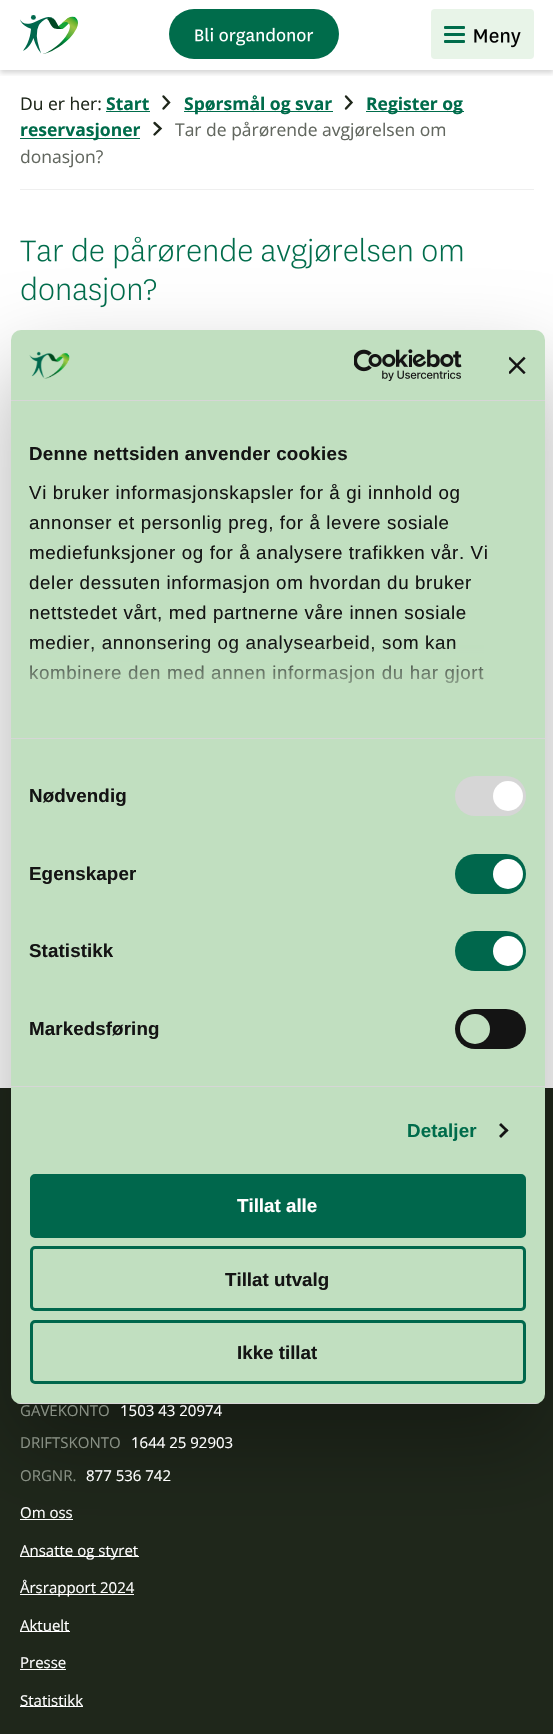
#include "include/core/SkBlurTypes.h"
#include "include/core/SkCanvas.h"
#include "include/core/SkData.h"
#include "include/core/SkFont.h"
#include "include/core/SkFontMgr.h"
#include "include/core/SkImage.h"
#include "include/core/SkMaskFilter.h"
#include "include/core/SkPaint.h"
#include "include/core/SkPathBuilder.h"
#include "include/core/SkTextBlob.h"
#include "include/effects/SkDashPathEffect.h"
#include "include/effects/SkGradientShader.h"
#include "include/utils/SkParsePath.h"

extern sk_sp<SkFontMgr> fontMgr;

void draw(SkCanvas* canvas) {
  SkPaint p;
  p.setAntiAlias(true);
  auto spacedText = [&](const char* s, float x, float y, const SkFont& font, const SkPaint& ink, float letter, float word) {
    std::vector<SkGlyphID> glyphs(font.countText(s, strlen(s), SkTextEncoding::kUTF8));
    std::vector<float> xs(glyphs.size());
    font.textToGlyphs(s, strlen(s), SkTextEncoding::kUTF8, glyphs);
    font.getXPos(glyphs, xs, x);
    float extra = 0;
    for (size_t i = 0; i < glyphs.size(); i++) {
      xs[i] += extra;
      extra += letter + word * (glyphs[i] == font.unicharToGlyph(' '));
    }
    canvas->drawTextBlob(SkTextBlob::MakeFromPosHGlyphs(glyphs, xs, y, font), 0, 0, ink);
  };
  canvas->clear(SK_ColorWHITE);
  canvas->save();
  canvas->clipRect(SkRect::MakeLTRB(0, 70, 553, 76));
  p.setColor(SkColorSetARGB(41, 0, 0, 0));
  p.setMaskFilter(SkMaskFilter::MakeBlur(kNormal_SkBlurStyle, 2.5f));
  canvas->drawRect(SkRect::MakeLTRB(0, 3, 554, 73), p);
  p.setMaskFilter(nullptr);
  canvas->restore();
  canvas->drawImageRect(SkImages::DeferredFromEncodedData(SkData::MakeFromFileName("images/1.png")), SkRect::MakeLTRB(20, 15, 78, 54), SkSamplingOptions());
  p.setColor(SkColorSetRGB(0, 108, 75));
  canvas->drawRoundRect(SkRect::MakeLTRB(169, 9, 339, 59), 25, 25, p);
  canvas->drawImageRect(SkImages::DeferredFromEncodedData(SkData::MakeFromFileName("images/2.png")), SkRect::MakeLTRB(195, 27, 314, 46), SkSamplingOptions());
  p.setColor(SkColorSetRGB(232, 244, 232));
  canvas->drawRoundRect(SkRect::MakeLTRB(431, 9, 534, 59), 4, 4, p);
  p.setColor(SkColorSetRGB(0, 108, 75));
  canvas->drawRoundRect(SkRect::MakeLTRB(444, 26, 465, 29), 1, 1, p);
  canvas->drawRoundRect(SkRect::MakeLTRB(444, 33, 465, 36), 1, 1, p);
  canvas->drawRoundRect(SkRect::MakeLTRB(444, 40, 465, 43), 1, 1, p);
  canvas->drawImageRect(SkImages::DeferredFromEncodedData(SkData::MakeFromFileName("images/3.png")), SkRect::MakeLTRB(474, 29, 521, 48), SkSamplingOptions());
  p.setColor(SkColorSetRGB(239, 239, 239));
  canvas->drawRect(SkRect::MakeLTRB(20, 189, 534, 190), p);
  p.setColor(SkColorSetRGB(0, 108, 75));
  canvas->drawRect(SkRect::MakeLTRB(106, 111, 150, 112), p);
  p.setStyle(SkPaint::kStroke_Style);
  p.setStrokeWidth(2.4f);
  p.setStrokeCap(SkPaint::kRound_Cap);
  p.setColor(SkColorSetRGB(31, 39, 27));
  canvas->drawPath(SkPathBuilder().moveTo(163.5f, 96.5f).lineTo(169, 102.5f).lineTo(163.5f, 108.5f).detach(), p);
  p.setStyle(SkPaint::kFill_Style);
  p.setColor(SkColorSetRGB(0, 108, 75));
  canvas->drawRect(SkRect::MakeLTRB(184, 111, 333, 112), p);
  p.setStyle(SkPaint::kStroke_Style);
  p.setColor(SkColorSetRGB(31, 39, 27));
  canvas->drawPath(SkPathBuilder().moveTo(346, 96.5f).lineTo(351.5f, 102.5f).lineTo(346, 108.5f).detach(), p);
  p.setStyle(SkPaint::kFill_Style);
  p.setColor(SkColorSetRGB(0, 108, 75));
  canvas->drawRect(SkRect::MakeLTRB(366, 111, 464, 112), p);
  canvas->drawRect(SkRect::MakeLTRB(20, 138, 140, 139), p);
  p.setStyle(SkPaint::kStroke_Style);
  p.setColor(SkColorSetRGB(31, 39, 27));
  canvas->drawPath(SkPathBuilder().moveTo(154.5f, 123).lineTo(160.5f, 128.5f).lineTo(154.5f, 134.5f).detach(), p);
  canvas->drawImageRect(SkImages::DeferredFromEncodedData(SkData::MakeFromFileName("images/4.png")), SkRect::MakeLTRB(20, 236, 463, 269), SkSamplingOptions());
  canvas->drawImageRect(SkImages::DeferredFromEncodedData(SkData::MakeFromFileName("images/5.png")), SkRect::MakeLTRB(21, 276, 156, 308), SkSamplingOptions());
  p.setStyle(SkPaint::kFill_Style);
  canvas->drawRect(SkRect::MakeLTRB(0, 1088, 553, 1734), p);
  p.setColor(SK_ColorWHITE);
  canvas->drawRect(SkRect::MakeLTRB(20, 1519, 73, 1520), p);
  canvas->drawRect(SkRect::MakeLTRB(20, 1556, 139, 1557), p);
  canvas->drawRect(SkRect::MakeLTRB(20, 1594, 134, 1595), p);
  canvas->drawRect(SkRect::MakeLTRB(20, 1631, 70, 1632), p);
  canvas->drawRect(SkRect::MakeLTRB(20, 1669, 66, 1670), p);
  canvas->drawRect(SkRect::MakeLTRB(20, 1706, 83, 1707), p);
  p.setColor(SkColorSetARGB(77, 0, 0, 0));
  p.setMaskFilter(SkMaskFilter::MakeBlur(kNormal_SkBlurStyle, 42.5f));
  canvas->drawRoundRect(SkRect::MakeLTRB(11, 370, 545, 1444), 10, 10, p);
  p.setMaskFilter(nullptr);
  p.setColor(SkColorSetRGB(193, 223, 192));
  canvas->drawRoundRect(SkRect::MakeLTRB(11, 330, 545, 1404), 10, 10, p);
  p.setColor(SkColorSetRGB(214, 214, 214));
  canvas->drawRect(SkRect::MakeLTRB(11, 400, 545, 401), p);
  canvas->drawImageRect(SkImages::DeferredFromEncodedData(SkData::MakeFromFileName("images/6.png")), SkRect::MakeLTRB(29, 351, 70, 379), SkSamplingOptions());
  canvas->drawImageRect(SkImages::DeferredFromEncodedData(SkData::MakeFromFileName("images/7.png")), SkRect::MakeLTRB(354, 349, 462, 381), SkSamplingOptions());
  canvas->drawImageRect(SkImages::DeferredFromEncodedData(SkData::MakeFromFileName("images/8.png")), SkRect::MakeLTRB(509, 356, 526, 374), SkSamplingOptions());
  canvas->drawRect(SkRect::MakeLTRB(11, 738, 545, 739), p);
  canvas->drawRect(SkRect::MakeLTRB(11, 1086, 545, 1087), p);
  canvas->drawRoundRect(SkRect::MakeLTRB(455, 776, 526, 816), 20, 20, p);
  p.setColor(SK_ColorWHITE);
  canvas->drawCircle(508, 796, 15, p);
  p.setColor(SkColorSetRGB(0, 103, 76));
  canvas->drawRoundRect(SkRect::MakeLTRB(455, 854, 526, 894), 20, 20, p);
  p.setColor(SK_ColorWHITE);
  canvas->drawCircle(508, 874, 15, p);
  p.setColor(SkColorSetRGB(0, 103, 76));
  canvas->drawRoundRect(SkRect::MakeLTRB(455, 931, 526, 971), 20, 20, p);
  p.setColor(SK_ColorWHITE);
  canvas->drawCircle(508, 951, 15, p);
  p.setColor(SkColorSetRGB(20, 20, 20));
  canvas->drawRoundRect(SkRect::MakeLTRB(455, 1009, 526, 1049), 20, 20, p);
  p.setColor(SkColorSetRGB(193, 223, 192));
  canvas->drawCircle(475, 1029, 15, p);
  p.setColor(SkColorSetRGB(20, 20, 20));
  canvas->drawPath(SkPathBuilder().moveTo(501, 1123).lineTo(508.5f, 1130.5f).lineTo(506.5f, 1132).lineTo(499, 1125).close().detach(), p);
  canvas->drawPath(SkPathBuilder().moveTo(506.5f, 1128.5f).lineTo(508.5f, 1130.5f).lineTo(501, 1138).lineTo(499, 1136).close().detach(), p);
  canvas->save();
  canvas->clipPath(SkPathBuilder().moveTo(21, 330).lineTo(535, 330).cubicTo(540.5f, 330, 545, 334.5f, 545, 340).lineTo(545, 1394).cubicTo(545, 1399.5f, 540.5f, 1404, 535, 1404).lineTo(21, 1404).cubicTo(15.5f, 1404, 11, 1399.5f, 11, 1394).lineTo(11, 340).cubicTo(11, 334.5f, 15.5f, 330, 21, 330).close().detach(), true);
  p.setColor(SkColorSetRGB(214, 214, 214));
  canvas->drawRect(SkRect::MakeLTRB(11, 1403, 545, 1404), p);
  canvas->restore();
  p.setColor(SkColorSetRGB(0, 103, 76));
  canvas->drawRoundRect(SkRect::MakeLTRB(31.5f, 1175.5f, 524.5f, 1236.5f), 3.5f, 3.5f, p);
  p.setStyle(SkPaint::kStroke_Style);
  p.setStrokeWidth(3);
  p.setStrokeCap(SkPaint::kButt_Cap);
  canvas->drawRoundRect(SkRect::MakeLTRB(31.5f, 1175.5f, 524.5f, 1236.5f), 3.5f, 3.5f, p);
  canvas->drawRoundRect(SkRect::MakeLTRB(31.5f, 1247.5f, 524.5f, 1309.5f), 3.5f, 3.5f, p);
  canvas->drawRoundRect(SkRect::MakeLTRB(31.5f, 1321.5f, 524.5f, 1382.5f), 3.5f, 3.5f, p);
  SkFont font1(fontMgr->matchFamilyStyle("Open Sans", SkFontStyle::Bold()), 17.5f);
  font1.setSubpixel(true);
  p.setStyle(SkPaint::kFill_Style);
  p.setColor(SkColorSetRGB(0, 108, 75));
  canvas->drawString("Start", 106, 110, font1, p);
  canvas->drawString("Spørsmål og svar", 184, 110, font1, p);
  canvas->drawString("Register og", 366, 110, font1, p);
  canvas->drawString("reservasjoner", 20, 136, font1, p);
  SkFont font2(fontMgr->matchFamilyStyle("Open Sans", SkFontStyle::Normal()), 17.5f);
  font2.setSubpixel(true);
  p.setColor(SkColorSetRGB(98, 103, 95));
  canvas->drawString("Tar de pårørende avgjørelsen om", 175, 136, font2, p);
  canvas->drawString("donasjon?", 20, 163, font2, p);
  p.setColor(SkColorSetRGB(31, 39, 27));
  canvas->drawString("Du er her:", 20, 110, font2, p);
  SkFont font3(fontMgr->matchFamilyStyle("Open Sans", SkFontStyle::Normal()), 15);
  font3.setSubpixel(true);
  p.setColor(SkColorSetRGB(136, 144, 132));
  canvas->drawString("GAVEKONTO", 20, 1416, font3, p);
  p.setColor(SK_ColorWHITE);
  canvas->drawString("1503 43 20974", 120, 1416, font3, p);
  p.setColor(SkColorSetRGB(136, 144, 132));
  canvas->drawString("DRIFTSKONTO", 20, 1448, font3, p);
  p.setColor(SK_ColorWHITE);
  canvas->drawString("1644 25 92903", 131, 1448, font3, p);
  p.setColor(SkColorSetRGB(136, 144, 132));
  canvas->drawString("ORGNR.", 20, 1481, font3, p);
  p.setColor(SK_ColorWHITE);
  canvas->drawString("877 536 742", 86, 1481, font3, p);
  canvas->drawString("Om oss", 20, 1518, font3, p);
  canvas->drawString("Ansatte og styret", 20, 1556, font3, p);
  canvas->drawString("Årsrapport 2024", 20, 1593, font3, p);
  canvas->drawString("Aktuelt", 20, 1631, font3, p);
  canvas->drawString("Presse", 20, 1668, font3, p);
  canvas->drawString("Statistikk", 20, 1706, font3, p);
  SkFont font4(fontMgr->matchFamilyStyle("Liberation Sans", SkFontStyle::Bold()), 18.75f);
  font4.setSubpixel(true);
  p.setColor(SkColorSetRGB(20, 20, 20));
  spacedText("Denne nettsiden anvender cookies", 29, 460, font4, p, 0.3f, 0);
  SkFont font5(fontMgr->matchFamilyStyle("Liberation Sans", SkFontStyle::Normal()), 18.75f);
  font5.setSubpixel(true);
  spacedText("Vi bruker informasjonskapsler for å gi innhold og", 29, 499, font5, p, 0.62f, 0);
  spacedText("annonser et personlig preg, for å levere sosiale", 29, 529, font5, p, 0.62f, 0);
  spacedText("mediefunksjoner og for å analysere trafikken vår. Vi", 29, 559, font5, p, 0.62f, 0);
  spacedText("deler dessuten informasjon om hvordan du bruker", 29, 589, font5, p, 0.62f, 0);
  spacedText("nettstedet vårt, med partnerne våre innen sosiale", 29, 619, font5, p, 0.62f, 0);
  spacedText("medier, annonsering og analysearbeid, som kan", 29, 649, font5, p, 0.62f, 0);
  spacedText("kombinere den med annen informasjon du har gjort", 29, 679, font5, p, 0.62f, 0);
  {
    const SkColor colors[] = {SkColorSetRGB(193, 223, 192), SkColorSetARGB(204, 193, 223, 192), SkColorSetARGB(0, 193, 223, 192)};
    const float stops[] = {0, 0.5f, 1};
    const SkPoint ends[] = {{269, 738}, {269, 644}};
    p.setShader(SkGradientShader::MakeLinear(ends, colors, stops, 3, SkTileMode::kClamp));
    p.setAlpha(255);
  }
  canvas->drawRect(SkRect::MakeLTRB(30, 645, 484, 683), p);
  p.setShader(nullptr);
  p.setColor(SkColorSetRGB(20, 20, 20));
  spacedText("Nødvendig", 29, 802, font4, p, 0.1f, 0);
  spacedText("Egenskaper", 29, 880, font4, p, 0.1f, 0);
  spacedText("Statistikk", 29, 957, font4, p, 0.1f, 0);
  spacedText("Markedsføring", 29, 1035, font4, p, 0.1f, 0);
  p.setColor(SkColorSetRGB(0, 108, 75));
  spacedText("Detaljer", 407, 1137, font4, p, 0.1f, 0);
  p.setColor(SK_ColorWHITE);
  canvas->drawString("Tillat alle", 237, 1212, font4, p);
  p.setColor(SkColorSetRGB(20, 20, 20));
  canvas->drawString("Tillat utvalg", 225, 1286, font4, p);
  canvas->drawString("Ikke tillat", 237, 1359, font4, p);
}
